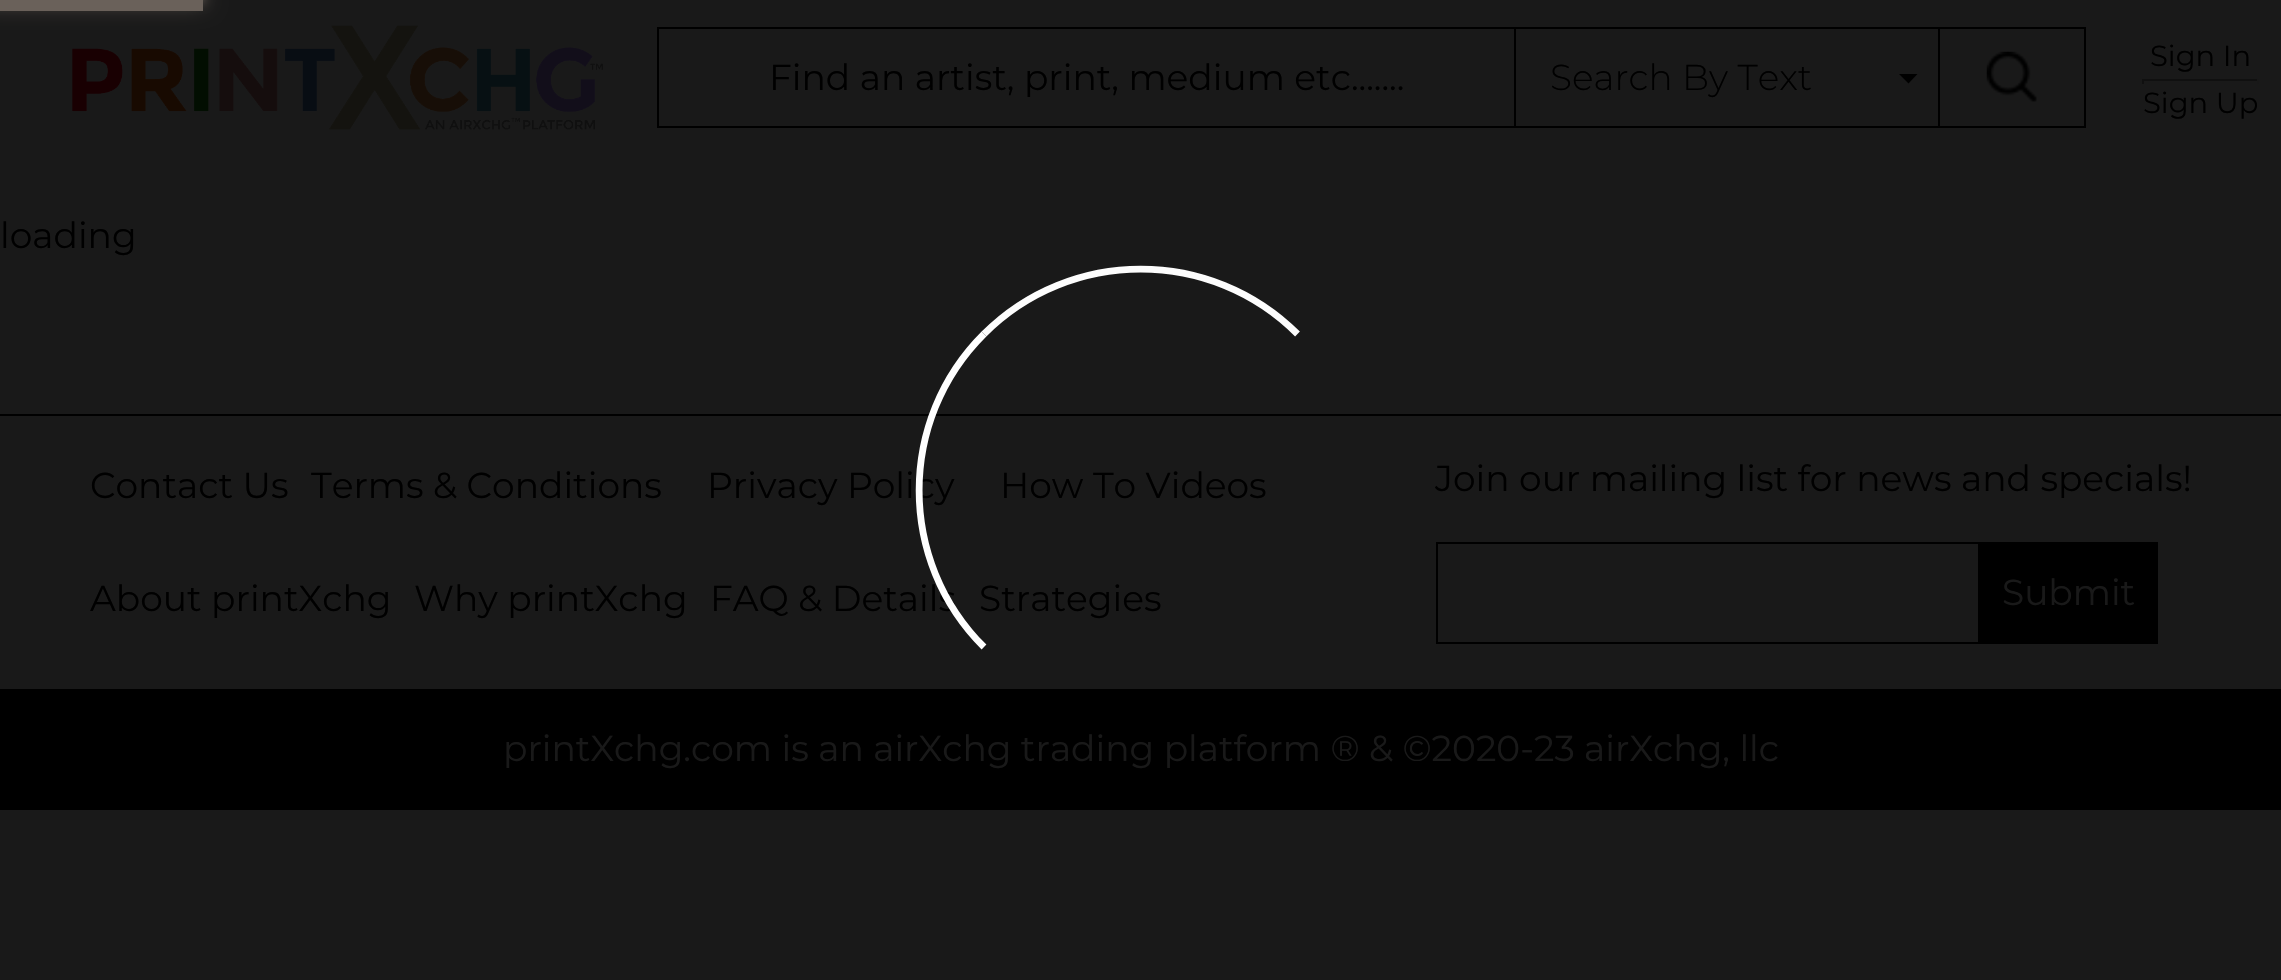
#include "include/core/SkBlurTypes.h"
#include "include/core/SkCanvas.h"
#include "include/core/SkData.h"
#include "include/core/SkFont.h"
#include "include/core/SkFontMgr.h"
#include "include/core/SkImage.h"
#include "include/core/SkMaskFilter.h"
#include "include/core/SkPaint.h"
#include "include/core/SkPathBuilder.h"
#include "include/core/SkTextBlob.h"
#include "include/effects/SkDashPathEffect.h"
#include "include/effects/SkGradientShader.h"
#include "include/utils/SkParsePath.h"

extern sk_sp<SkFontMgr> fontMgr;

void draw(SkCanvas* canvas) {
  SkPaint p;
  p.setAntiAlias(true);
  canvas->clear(SkColorSetRGB(25, 25, 25));
  p.setColor(SkColorSetRGB(106, 97, 90));
  canvas->drawRect(SkRect::MakeLTRB(0, 0, 203, 11), p);
  canvas->save();
  canvas->clipPath(SkPathBuilder(SkPathFillType::kEvenOdd).moveTo(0, 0).lineTo(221, 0).lineTo(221, 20).lineTo(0, 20).close().moveTo(-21.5f, -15).lineTo(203, -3).lineTo(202.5f, 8).lineTo(-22, -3.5f).close().detach(), true);
  p.setMaskFilter(SkMaskFilter::MakeBlur(kNormal_SkBlurStyle, 5.5f));
  canvas->drawRect(SkRect::MakeLTRB(-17, -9, 203, 2), p);
  p.setMaskFilter(nullptr);
  canvas->restore();
  canvas->drawImageRect(SkImages::DeferredFromEncodedData(SkData::MakeFromFileName("images/1.png")), SkRect::MakeLTRB(72, 25, 603, 130), SkSamplingOptions());
  canvas->save();
  canvas->clipPath(SkPathBuilder(SkPathFillType::kEvenOdd).moveTo(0, 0).lineTo(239, 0).lineTo(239, 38).lineTo(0, 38).close().moveTo(-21.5f, -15).lineTo(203, -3).lineTo(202.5f, 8).lineTo(-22, -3.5f).close().detach(), true);
  p.setMaskFilter(SkMaskFilter::MakeBlur(kNormal_SkBlurStyle, 11.5f));
  canvas->drawRect(SkRect::MakeLTRB(-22, -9, 203, 2), p);
  p.setMaskFilter(nullptr);
  canvas->restore();
  p.setStyle(SkPaint::kStroke_Style);
  p.setStrokeWidth(6.8f);
  p.setColor(SkColorSetRGB(253, 253, 253));
  canvas->drawPath(SkPathBuilder().moveTo(984, 334).cubicTo(1070.5f, 247.5f, 1211, 247.5f, 1297.5f, 334).detach(), p);
  p.setStyle(SkPaint::kFill_Style);
  p.setColor(SK_ColorBLACK);
  canvas->drawRect(SkRect::MakeLTRB(657, 27, 1514, 29), p);
  canvas->drawRect(SkRect::MakeLTRB(657, 126, 1514, 128), p);
  canvas->drawRect(SkRect::MakeLTRB(657, 27, 659, 128), p);
  canvas->drawPath(SkPathBuilder().moveTo(1899, 74).lineTo(1917.5f, 74).lineTo(1908.5f, 83.5f).close().detach(), p);
  p.setStyle(SkPaint::kStroke_Style);
  p.setStrokeWidth(2);
  canvas->drawRect(SkRect::MakeLTRB(1515, 28, 1939, 127), p);
  p.setStyle(SkPaint::kFill_Style);
  canvas->drawRect(SkRect::MakeLTRB(1940, 27, 2086, 29), p);
  canvas->drawRect(SkRect::MakeLTRB(2084, 27, 2086, 128), p);
  canvas->drawRect(SkRect::MakeLTRB(1940, 126, 2086, 128), p);
  canvas->drawImageRect(SkImages::DeferredFromEncodedData(SkData::MakeFromFileName("images/2.png")), SkRect::MakeLTRB(1986, 51, 2037, 102), SkSamplingOptions());
  p.setColor(SkColorSetRGB(16, 16, 16));
  canvas->drawRect(SkRect::MakeLTRB(2142, 79, 2259, 81), p);
  p.setColor(SkColorSetRGB(24, 24, 24));
  canvas->drawRect(SkRect::MakeLTRB(2257, 79, 2259, 84), p);
  p.setColor(SkColorSetRGB(16, 16, 16));
  canvas->drawRect(SkRect::MakeLTRB(2142, 79, 2144, 84), p);
  p.setColor(SK_ColorBLACK);
  canvas->drawRect(SkRect::MakeLTRB(0, 414, 2281, 416), p);
  p.setStyle(SkPaint::kStroke_Style);
  canvas->drawRect(SkRect::MakeLTRB(1437, 543, 1979, 643), p);
  p.setStyle(SkPaint::kFill_Style);
  canvas->drawRect(SkRect::MakeLTRB(1980, 542, 2158, 644), p);
  canvas->drawRect(SkRect::MakeLTRB(0, 689, 2281, 810), p);
  SkFont font1(fontMgr->matchFamilyStyle("Montserrat", SkFontStyle::Normal()), 36);
  font1.setSubpixel(true);
  canvas->drawString("Find an artist, print, medium etc.......", 769, 90, font1, p);
  SkFont font2(fontMgr->matchFamilyStyle("Montserrat", SkFontStyle(300, SkFontStyle::kNormal_Width, SkFontStyle::kUpright_Slant)), 36);
  font2.setSubpixel(true);
  canvas->drawString("Search By Text", 1550, 90, font2, p);
  SkFont font3(fontMgr->matchFamilyStyle("Montserrat", SkFontStyle::Normal()), 29);
  font3.setSubpixel(true);
  canvas->drawString("Sign In", 2150, 66, font3, p);
  canvas->drawString("Sign Up", 2143, 113, font3, p);
  canvas->drawString("loading", 0, 248, font1, p);
  canvas->drawString("Contact Us", 90, 498, font1, p);
  canvas->drawString("Terms & Conditions", 311, 498, font1, p);
  canvas->drawString("Privacy Policy", 707, 498, font1, p);
  canvas->drawString("How To Videos", 1000, 498, font1, p);
  canvas->drawString("About printXchg", 90, 611, font1, p);
  canvas->drawString("Why printXchg", 414, 611, font1, p);
  canvas->drawString("FAQ & Details", 710, 611, font1, p);
  canvas->drawString("Strategies", 979, 611, font1, p);
  p.setStyle(SkPaint::kStroke_Style);
  p.setStrokeWidth(6.8f);
  p.setColor(SK_ColorWHITE);
  canvas->drawPath(SkPathBuilder().moveTo(984, 647).cubicTo(897.5f, 561, 897.5f, 420, 984, 334).detach(), p);
  p.setStyle(SkPaint::kFill_Style);
  p.setColor(SK_ColorBLACK);
  canvas->drawString("Join our mailing list for news and specials!", 1435, 491, font1, p);
  p.setColor(SkColorSetRGB(25, 25, 25));
  canvas->drawString("Submit", 2002, 605, font1, p);
  canvas->drawString("printXchg.com is an airXchg trading platform ® & ©2020-23 airXchg, llc", 503, 761, font1, p);
}
